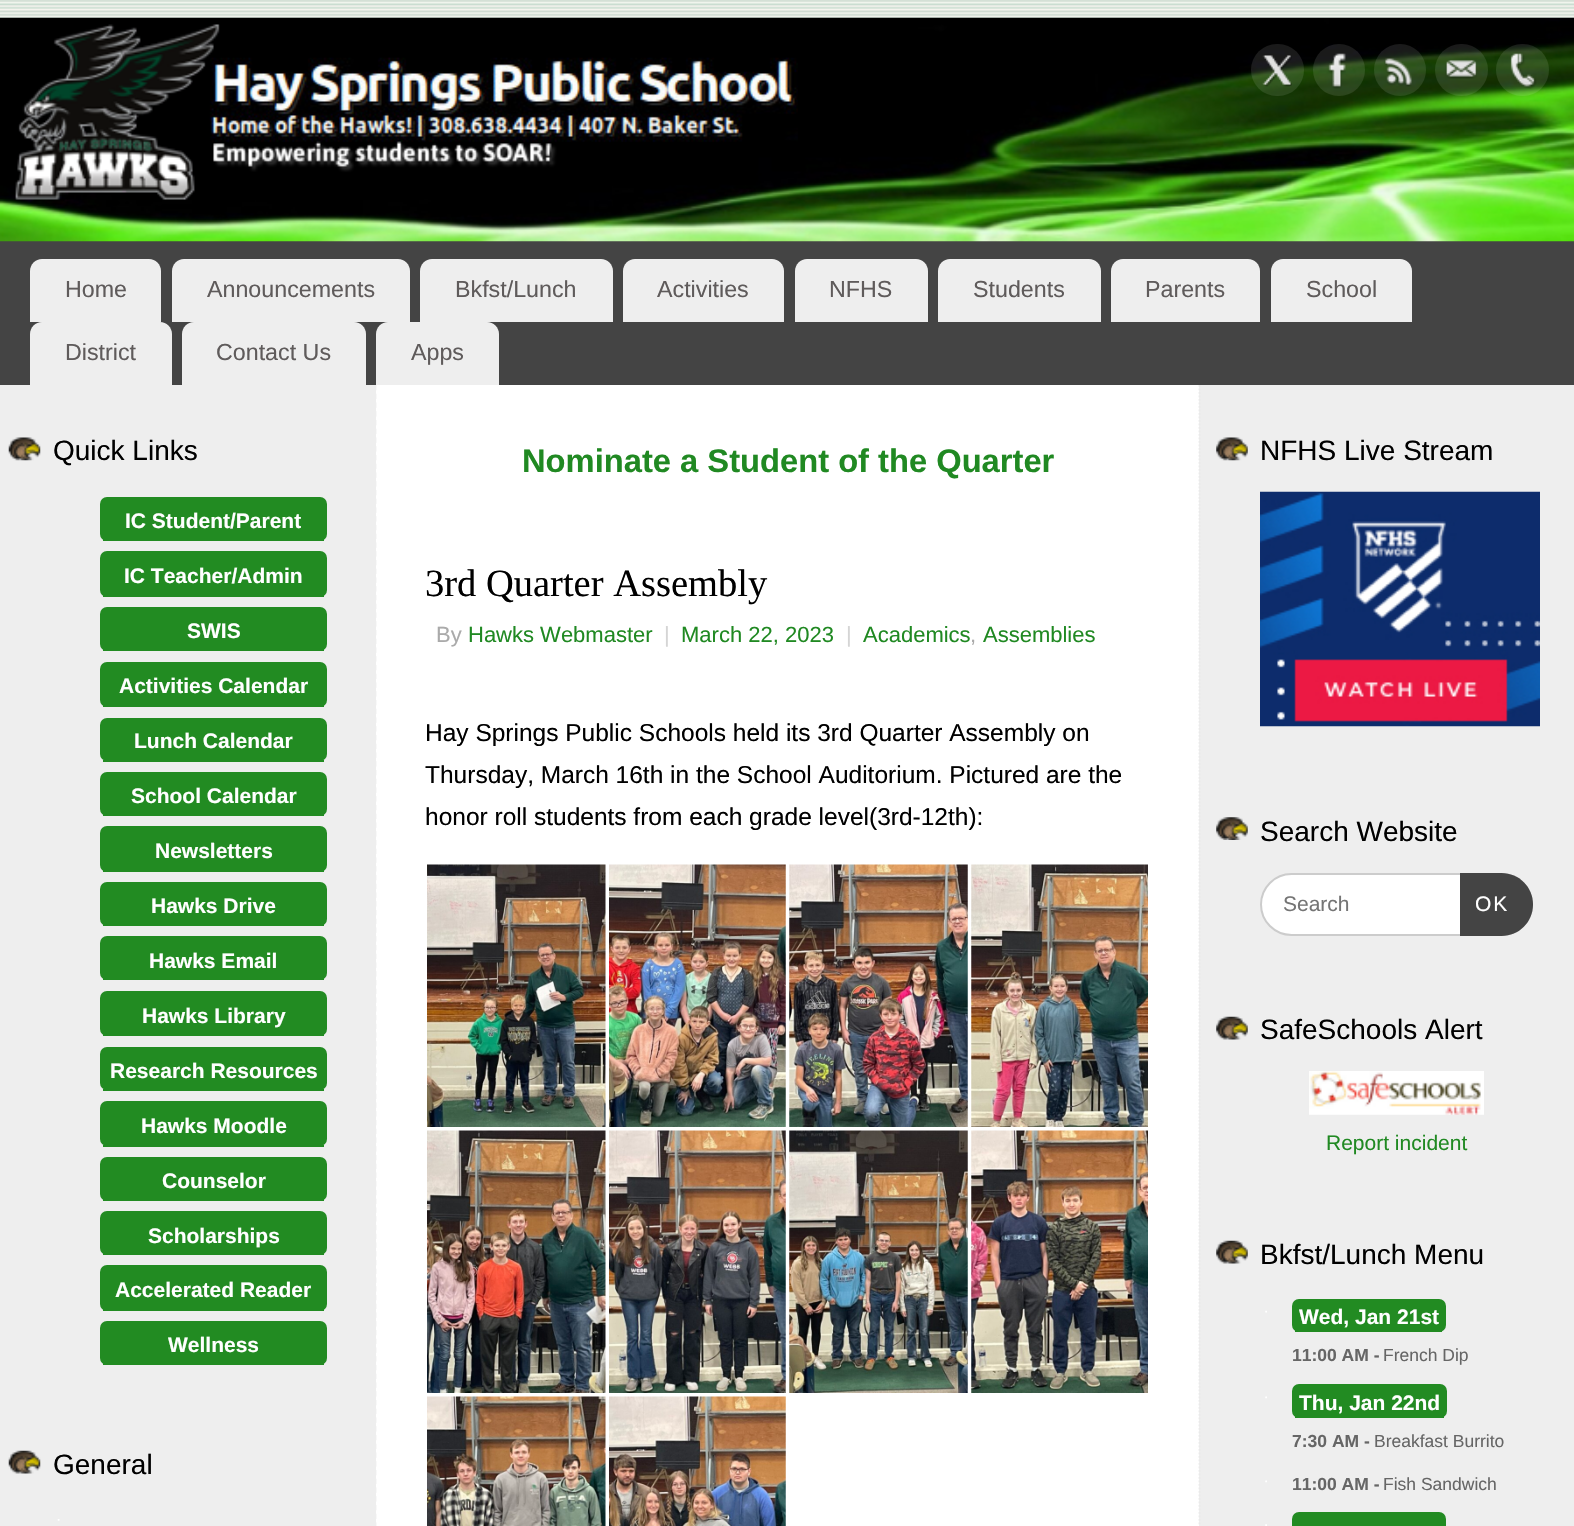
#include "include/core/SkBlurTypes.h"
#include "include/core/SkCanvas.h"
#include "include/core/SkData.h"
#include "include/core/SkFont.h"
#include "include/core/SkFontMgr.h"
#include "include/core/SkImage.h"
#include "include/core/SkMaskFilter.h"
#include "include/core/SkPaint.h"
#include "include/core/SkPathBuilder.h"
#include "include/core/SkTextBlob.h"
#include "include/effects/SkDashPathEffect.h"
#include "include/effects/SkGradientShader.h"
#include "include/utils/SkParsePath.h"

extern sk_sp<SkFontMgr> fontMgr;

void draw(SkCanvas* canvas) {
  SkPaint p;
  p.setAntiAlias(true);
  auto spacedText = [&](const char* s, float x, float y, const SkFont& font, const SkPaint& ink, float letter, float word) {
    std::vector<SkGlyphID> glyphs(font.countText(s, strlen(s), SkTextEncoding::kUTF8));
    std::vector<float> xs(glyphs.size());
    font.textToGlyphs(s, strlen(s), SkTextEncoding::kUTF8, glyphs);
    font.getXPos(glyphs, xs, x);
    float extra = 0;
    for (size_t i = 0; i < glyphs.size(); i++) {
      xs[i] += extra;
      extra += letter + word * (glyphs[i] == font.unicharToGlyph(' '));
    }
    canvas->drawTextBlob(SkTextBlob::MakeFromPosHGlyphs(glyphs, xs, y, font), 0, 0, ink);
  };
  canvas->clear(SK_ColorWHITE);
  canvas->drawImageRect(SkImages::DeferredFromEncodedData(SkData::MakeFromFileName("images/1.png")), SkRect::MakeLTRB(0, 0, 1574, 18), SkSamplingOptions());
  p.setColor(SkColorSetRGB(68, 68, 68));
  canvas->drawRect(SkRect::MakeLTRB(0, 241, 1574, 385), p);
  canvas->drawImageRect(SkImages::DeferredFromEncodedData(SkData::MakeFromFileName("images/2.png")), SkRect::MakeLTRB(0, 17, 1574, 242), SkSamplingOptions());
  canvas->drawImageRect(SkImages::DeferredFromEncodedData(SkData::MakeFromFileName("images/3.png")), SkRect::MakeLTRB(15, 24, 798, 200), SkSamplingOptions());
  p.setColor(SkColorSetARGB(26, 255, 255, 255));
  canvas->drawRoundRect(SkRect::MakeLTRB(1251, 44, 1304, 96), 26, 26, p);
  canvas->drawImageRect(SkImages::DeferredFromEncodedData(SkData::MakeFromFileName("images/4.png")), SkRect::MakeLTRB(1262, 55, 1292, 87), SkSamplingOptions());
  canvas->drawCircle(1339, 70, 26, p);
  canvas->drawImageRect(SkImages::DeferredFromEncodedData(SkData::MakeFromFileName("images/5.png")), SkRect::MakeLTRB(1328, 53, 1346, 89), SkSamplingOptions());
  canvas->drawCircle(1400, 70, 26, p);
  canvas->drawImageRect(SkImages::DeferredFromEncodedData(SkData::MakeFromFileName("images/6.png")), SkRect::MakeLTRB(1384, 58, 1412, 87), SkSamplingOptions());
  canvas->drawRoundRect(SkRect::MakeLTRB(1435, 44, 1488, 96), 26, 26, p);
  canvas->drawImageRect(SkImages::DeferredFromEncodedData(SkData::MakeFromFileName("images/7.png")), SkRect::MakeLTRB(1445, 60, 1477, 79), SkSamplingOptions());
  canvas->drawRoundRect(SkRect::MakeLTRB(1496, 44, 1549, 96), 26, 26, p);
  canvas->drawImageRect(SkImages::DeferredFromEncodedData(SkData::MakeFromFileName("images/8.png")), SkRect::MakeLTRB(1510, 53, 1537, 89), SkSamplingOptions());
  p.setColor(SkColorSetRGB(238, 238, 238));
  canvas->drawPath(SkPathBuilder().moveTo(42, 259).lineTo(149, 259).cubicTo(155.5f, 259, 161, 264.5f, 161, 271).lineTo(161, 322).lineTo(30, 322).lineTo(30, 271).cubicTo(30, 264.5f, 35.5f, 259, 42, 259).close().detach(), p);
  canvas->drawPath(SkPathBuilder().moveTo(184, 259).lineTo(398, 259).cubicTo(404.5f, 259, 410, 264.5f, 410, 271).lineTo(410, 322).lineTo(172, 322).lineTo(172, 271).cubicTo(172, 264.5f, 177.5f, 259, 184, 259).close().detach(), p);
  canvas->drawPath(SkPathBuilder().moveTo(432, 259).lineTo(601, 259).cubicTo(607.5f, 259, 613, 264.5f, 613, 271).lineTo(613, 322).lineTo(420, 322).lineTo(420, 271).cubicTo(420, 264.5f, 425.5f, 259, 432, 259).close().detach(), p);
  canvas->drawPath(SkPathBuilder().moveTo(635, 259).lineTo(772, 259).cubicTo(778.5f, 259, 784, 264.5f, 784, 271).lineTo(784, 322).lineTo(623, 322).lineTo(623, 271).cubicTo(623, 264.5f, 628.5f, 259, 635, 259).close().detach(), p);
  canvas->drawPath(SkPathBuilder().moveTo(807, 259).lineTo(916, 259).cubicTo(922.5f, 259, 928, 264.5f, 928, 271).lineTo(928, 322).lineTo(795, 322).lineTo(795, 271).cubicTo(795, 264.5f, 800.5f, 259, 807, 259).close().detach(), p);
  canvas->drawPath(SkPathBuilder().moveTo(950, 259).lineTo(1089, 259).cubicTo(1095.5f, 259, 1101, 264.5f, 1101, 271).lineTo(1101, 322).lineTo(938, 322).lineTo(938, 271).cubicTo(938, 264.5f, 943.5f, 259, 950, 259).close().detach(), p);
  canvas->drawPath(SkPathBuilder().moveTo(1123, 259).lineTo(1248, 259).cubicTo(1254.5f, 259, 1260, 264.5f, 1260, 271).lineTo(1260, 322).lineTo(1111, 322).lineTo(1111, 271).cubicTo(1111, 264.5f, 1116.5f, 259, 1123, 259).close().detach(), p);
  canvas->drawPath(SkPathBuilder().moveTo(1283, 259).lineTo(1400, 259).cubicTo(1406.5f, 259, 1412, 264.5f, 1412, 271).lineTo(1412, 322).lineTo(1271, 322).lineTo(1271, 271).cubicTo(1271, 264.5f, 1276.5f, 259, 1283, 259).close().detach(), p);
  canvas->drawPath(SkPathBuilder().moveTo(42, 322).lineTo(160, 322).cubicTo(166.5f, 322, 172, 327.5f, 172, 334).lineTo(172, 385).lineTo(30, 385).lineTo(30, 334).cubicTo(30, 327.5f, 35.5f, 322, 42, 322).close().detach(), p);
  canvas->drawPath(SkPathBuilder().moveTo(194, 322).lineTo(354, 322).cubicTo(360.5f, 322, 366, 327.5f, 366, 334).lineTo(366, 385).lineTo(182, 385).lineTo(182, 334).cubicTo(182, 327.5f, 187.5f, 322, 194, 322).close().detach(), p);
  canvas->drawPath(SkPathBuilder().moveTo(388, 322).lineTo(487, 322).cubicTo(493.5f, 322, 499, 327.5f, 499, 334).lineTo(499, 385).lineTo(376, 385).lineTo(376, 334).cubicTo(376, 327.5f, 381.5f, 322, 388, 322).close().detach(), p);
  canvas->drawRect(SkRect::MakeLTRB(0, 385, 376, 1526), p);
  p.setStyle(SkPaint::kStroke_Style);
  p.setStrokeWidth(1.8f);
  p.setPathEffect(SkDashPathEffect::Make({{5.25f, 3.5f}}, 0));
  canvas->drawPath(SkPathBuilder().moveTo(375.5f, 385).lineTo(375.5f, 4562).detach(), p);
  p.setPathEffect(nullptr);
  canvas->drawImageRect(SkImages::DeferredFromEncodedData(SkData::MakeFromFileName("images/9.png")), SkRect::MakeLTRB(8, 437, 41, 461), SkSamplingOptions());
  p.setStyle(SkPaint::kFill_Style);
  p.setColor(SkColorSetRGB(34, 139, 34));
  canvas->drawRoundRect(SkRect::MakeLTRB(100, 497, 327, 541), 7, 7, p);
  canvas->drawRect(SkRect::MakeLTRB(103, 539, 324, 541), p);
  canvas->drawRoundRect(SkRect::MakeLTRB(100, 551, 327, 597), 7, 7, p);
  canvas->drawRect(SkRect::MakeLTRB(103, 595, 324, 597), p);
  canvas->drawRoundRect(SkRect::MakeLTRB(100, 607, 327, 651), 7, 7, p);
  canvas->drawRect(SkRect::MakeLTRB(103, 649, 324, 651), p);
  canvas->drawRoundRect(SkRect::MakeLTRB(100, 662, 327, 707), 7, 7, p);
  canvas->drawRect(SkRect::MakeLTRB(103, 705, 324, 707), p);
  canvas->drawRoundRect(SkRect::MakeLTRB(100, 718, 327, 761), 7, 7, p);
  canvas->drawRect(SkRect::MakeLTRB(103, 760, 324, 762), p);
  canvas->drawRoundRect(SkRect::MakeLTRB(100, 772, 327, 816), 7, 7, p);
  canvas->drawRect(SkRect::MakeLTRB(103, 814, 324, 816), p);
  canvas->drawRoundRect(SkRect::MakeLTRB(100, 826, 327, 872), 7, 7, p);
  canvas->drawRect(SkRect::MakeLTRB(103, 870, 324, 872), p);
  canvas->drawRoundRect(SkRect::MakeLTRB(100, 882, 327, 926), 7, 7, p);
  canvas->drawRect(SkRect::MakeLTRB(103, 924, 324, 926), p);
  canvas->drawRoundRect(SkRect::MakeLTRB(100, 936, 327, 980), 7, 7, p);
  canvas->drawRect(SkRect::MakeLTRB(103, 978, 324, 980), p);
  canvas->drawRoundRect(SkRect::MakeLTRB(100, 991, 327, 1036), 7, 7, p);
  canvas->drawRect(SkRect::MakeLTRB(103, 1034, 324, 1036), p);
  canvas->drawRoundRect(SkRect::MakeLTRB(100, 1047, 327, 1090), 7, 7, p);
  canvas->drawRect(SkRect::MakeLTRB(103, 1089, 324, 1091), p);
  canvas->drawRoundRect(SkRect::MakeLTRB(100, 1101, 327, 1146), 7, 7, p);
  canvas->drawRect(SkRect::MakeLTRB(103, 1145, 324, 1147), p);
  canvas->drawRoundRect(SkRect::MakeLTRB(100, 1157, 327, 1201), 7, 7, p);
  canvas->drawRect(SkRect::MakeLTRB(103, 1199, 324, 1201), p);
  canvas->drawRoundRect(SkRect::MakeLTRB(100, 1211, 327, 1255), 7, 7, p);
  canvas->drawRect(SkRect::MakeLTRB(103, 1253, 324, 1255), p);
  canvas->drawRoundRect(SkRect::MakeLTRB(100, 1265, 327, 1311), 7, 7, p);
  canvas->drawRect(SkRect::MakeLTRB(103, 1309, 324, 1311), p);
  canvas->drawRoundRect(SkRect::MakeLTRB(100, 1321, 327, 1365), 7, 7, p);
  canvas->drawRect(SkRect::MakeLTRB(103, 1363, 324, 1365), p);
  canvas->drawImageRect(SkImages::DeferredFromEncodedData(SkData::MakeFromFileName("images/10.png")), SkRect::MakeLTRB(8, 1450, 41, 1474), SkSamplingOptions());
  canvas->drawImageRect(SkImages::DeferredFromEncodedData(SkData::MakeFromFileName("images/11.png")), SkRect::MakeLTRB(57, 1519, 60, 1521), SkSamplingOptions());
  canvas->drawImageRect(SkImages::DeferredFromEncodedData(SkData::MakeFromFileName("images/12.png")), SkRect::MakeLTRB(427, 864, 606, 1127), SkSamplingOptions());
  canvas->drawImageRect(SkImages::DeferredFromEncodedData(SkData::MakeFromFileName("images/13.png")), SkRect::MakeLTRB(609, 864, 786, 1127), SkSamplingOptions());
  canvas->drawImageRect(SkImages::DeferredFromEncodedData(SkData::MakeFromFileName("images/14.png")), SkRect::MakeLTRB(789, 864, 968, 1127), SkSamplingOptions());
  canvas->drawImageRect(SkImages::DeferredFromEncodedData(SkData::MakeFromFileName("images/15.png")), SkRect::MakeLTRB(971, 864, 1148, 1127), SkSamplingOptions());
  canvas->drawImageRect(SkImages::DeferredFromEncodedData(SkData::MakeFromFileName("images/16.png")), SkRect::MakeLTRB(427, 1130, 606, 1393), SkSamplingOptions());
  canvas->drawImageRect(SkImages::DeferredFromEncodedData(SkData::MakeFromFileName("images/17.png")), SkRect::MakeLTRB(609, 1130, 786, 1393), SkSamplingOptions());
  canvas->drawImageRect(SkImages::DeferredFromEncodedData(SkData::MakeFromFileName("images/18.png")), SkRect::MakeLTRB(789, 1130, 968, 1393), SkSamplingOptions());
  canvas->drawImageRect(SkImages::DeferredFromEncodedData(SkData::MakeFromFileName("images/19.png")), SkRect::MakeLTRB(971, 1130, 1148, 1393), SkSamplingOptions());
  canvas->drawImageRect(SkImages::DeferredFromEncodedData(SkData::MakeFromFileName("images/20.png")), SkRect::MakeLTRB(427, 1396, 606, 1526), SkSamplingOptions());
  canvas->drawImageRect(SkImages::DeferredFromEncodedData(SkData::MakeFromFileName("images/21.png")), SkRect::MakeLTRB(609, 1396, 786, 1526), SkSamplingOptions());
  p.setColor(SkColorSetRGB(238, 238, 238));
  canvas->drawRect(SkRect::MakeLTRB(1199, 385, 1574, 1526), p);
  p.setStyle(SkPaint::kStroke_Style);
  p.setColor(SkColorSetRGB(234, 234, 234));
  p.setPathEffect(SkDashPathEffect::Make({{1.75f, 1.75f}}, 0));
  canvas->drawPath(SkPathBuilder().moveTo(1199.5f, 385).lineTo(1199.5f, 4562).detach(), p);
  p.setPathEffect(nullptr);
  canvas->drawImageRect(SkImages::DeferredFromEncodedData(SkData::MakeFromFileName("images/22.png")), SkRect::MakeLTRB(1216, 437, 1248, 461), SkSamplingOptions());
  canvas->drawImageRect(SkImages::DeferredFromEncodedData(SkData::MakeFromFileName("images/23.png")), SkRect::MakeLTRB(1260, 491, 1540, 727), SkSamplingOptions());
  canvas->drawImageRect(SkImages::DeferredFromEncodedData(SkData::MakeFromFileName("images/24.png")), SkRect::MakeLTRB(1216, 817, 1248, 840), SkSamplingOptions());
  p.setStyle(SkPaint::kFill_Style);
  p.setColor(SK_ColorWHITE);
  canvas->drawRoundRect(SkRect::MakeLTRB(1261, 874, 1532, 935), 30.5f, 30.5f, p);
  p.setStyle(SkPaint::kStroke_Style);
  p.setStrokeWidth(2);
  p.setColor(SkColorSetRGB(204, 204, 204));
  canvas->drawRoundRect(SkRect::MakeLTRB(1261, 874, 1532, 935), 30.5f, 30.5f, p);
  p.setStyle(SkPaint::kFill_Style);
  p.setColor(SkColorSetRGB(68, 68, 68));
  canvas->drawPath(SkPathBuilder().moveTo(1460, 873).lineTo(1501.5f, 873).cubicTo(1519, 873, 1533, 887, 1533, 904.5f).cubicTo(1533, 922, 1519, 936, 1501.5f, 936).lineTo(1460, 936).close().detach(), p);
  canvas->drawImageRect(SkImages::DeferredFromEncodedData(SkData::MakeFromFileName("images/25.png")), SkRect::MakeLTRB(1216, 1016, 1248, 1040), SkSamplingOptions());
  canvas->drawImageRect(SkImages::DeferredFromEncodedData(SkData::MakeFromFileName("images/26.png")), SkRect::MakeLTRB(1309, 1071, 1484, 1115), SkSamplingOptions());
  canvas->drawImageRect(SkImages::DeferredFromEncodedData(SkData::MakeFromFileName("images/25.png")), SkRect::MakeLTRB(1216, 1240, 1248, 1264), SkSamplingOptions());
  canvas->drawImageRect(SkImages::DeferredFromEncodedData(SkData::MakeFromFileName("images/27.png")), SkRect::MakeLTRB(1265, 1310, 1267, 1313), SkSamplingOptions());
  p.setColor(SkColorSetRGB(34, 139, 34));
  canvas->drawRoundRect(SkRect::MakeLTRB(1292, 1299, 1446, 1332), 7, 7, p);
  canvas->drawRect(SkRect::MakeLTRB(1295, 1330, 1442, 1332), p);
  canvas->drawImageRect(SkImages::DeferredFromEncodedData(SkData::MakeFromFileName("images/28.png")), SkRect::MakeLTRB(1265, 1396, 1267, 1399), SkSamplingOptions());
  canvas->drawRoundRect(SkRect::MakeLTRB(1292, 1384, 1447, 1418), 7, 7, p);
  canvas->drawRect(SkRect::MakeLTRB(1295, 1416, 1444, 1418), p);
  canvas->drawImageRect(SkImages::DeferredFromEncodedData(SkData::MakeFromFileName("images/28.png")), SkRect::MakeLTRB(1265, 1480, 1267, 1483), SkSamplingOptions());
  canvas->drawImageRect(SkImages::DeferredFromEncodedData(SkData::MakeFromFileName("images/29.png")), SkRect::MakeLTRB(1265, 1524, 1267, 1526), SkSamplingOptions());
  canvas->drawRoundRect(SkRect::MakeLTRB(1292, 1512, 1446, 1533), 7, 7, p);
  SkFont font1(fontMgr->matchFamilyStyle("Liberation Sans", SkFontStyle::Normal()), 23.25f);
  font1.setSubpixel(true);
  p.setColor(SkColorSetRGB(95, 91, 91));
  canvas->drawString("Home", 65, 297, font1, p);
  canvas->drawString("Announcements", 207, 297, font1, p);
  canvas->drawString("Bkfst/Lunch", 455, 297, font1, p);
  canvas->drawString("Activities", 657, 297, font1, p);
  canvas->drawString("NFHS", 829, 297, font1, p);
  canvas->drawString("Students", 973, 297, font1, p);
  canvas->drawString("Parents", 1145, 297, font1, p);
  canvas->drawString("School", 1306, 297, font1, p);
  canvas->drawString("District", 65, 360, font1, p);
  canvas->drawString("Contact Us", 216, 360, font1, p);
  canvas->drawString("Apps", 411, 360, font1, p);
  SkFont font2(fontMgr->matchFamilyStyle("Liberation Sans", SkFontStyle::Normal()), 28);
  font2.setSubpixel(true);
  p.setColor(SK_ColorBLACK);
  canvas->drawString("Quick Links", 53, 460, font2, p);
  SkFont font3(fontMgr->matchFamilyStyle("Liberation Sans", SkFontStyle::Bold()), 21);
  font3.setSubpixel(true);
  p.setColor(SK_ColorWHITE);
  canvas->drawString("IC Student/Parent", 125, 528, font3, p);
  canvas->drawString("IC Teacher/Admin", 124, 583, font3, p);
  canvas->drawString("SWIS", 187, 638, font3, p);
  canvas->drawString("Activities Calendar", 119, 693, font3, p);
  canvas->drawString("Lunch Calendar", 134, 748, font3, p);
  canvas->drawString("School Calendar", 131, 803, font3, p);
  canvas->drawString("Newsletters", 155, 858, font3, p);
  canvas->drawString("Hawks Drive", 151, 913, font3, p);
  canvas->drawString("Hawks Email", 149, 968, font3, p);
  canvas->drawString("Hawks Library", 142, 1023, font3, p);
  canvas->drawString("Research Resources", 110, 1078, font3, p);
  canvas->drawString("Hawks Moodle", 141, 1133, font3, p);
  canvas->drawString("Counselor", 162, 1188, font3, p);
  canvas->drawString("Scholarships", 148, 1243, font3, p);
  canvas->drawString("Accelerated Reader", 115, 1297, font3, p);
  canvas->drawString("Wellness", 168, 1352, font3, p);
  p.setColor(SK_ColorBLACK);
  canvas->drawString("General", 53, 1474, font2, p);
  SkFont font4(fontMgr->matchFamilyStyle("Liberation Sans", SkFontStyle::Bold()), 32.7f);
  font4.setSubpixel(true);
  p.setColor(SkColorSetRGB(32, 137, 34));
  canvas->drawString("Nominate a Student of the Quarter", 522, 472, font4, p);
  SkFont font5(fontMgr->matchFamilyStyle("Liberation Serif", SkFontStyle::Normal()), 38.5f);
  font5.setSubpixel(true);
  p.setColor(SK_ColorBLACK);
  canvas->drawString("3rd Quarter Assembly", 425, 596, font5, p);
  SkFont font6(fontMgr->matchFamilyStyle("Liberation Sans", SkFontStyle::Normal()), 22);
  font6.setSubpixel(true);
  p.setColor(SkColorSetRGB(170, 170, 170));
  canvas->drawString("By", 436, 642, font6, p);
  p.setColor(SkColorSetRGB(32, 137, 34));
  canvas->drawString("Hawks Webmaster", 468, 642, font6, p);
  p.setColor(SkColorSetRGB(213, 213, 213));
  canvas->drawString("|", 664, 642, font6, p);
  p.setColor(SkColorSetRGB(32, 137, 34));
  canvas->drawString("March 22, 2023", 681, 642, font6, p);
  p.setColor(SkColorSetRGB(213, 213, 213));
  canvas->drawString("|", 846, 642, font6, p);
  p.setColor(SkColorSetRGB(32, 137, 34));
  canvas->drawString("Academics", 863, 642, font6, p);
  p.setColor(SkColorSetRGB(170, 170, 170));
  canvas->drawString(",", 970, 642, font6, p);
  p.setColor(SkColorSetRGB(32, 137, 34));
  canvas->drawString("Assemblies", 983, 642, font6, p);
  SkFont font7(fontMgr->matchFamilyStyle("Liberation Sans", SkFontStyle::Normal()), 24.5f);
  font7.setSubpixel(true);
  p.setColor(SK_ColorBLACK);
  canvas->drawString("Hay Springs Public Schools held its 3rd Quarter Assembly on", 425, 741, font7, p);
  canvas->drawString("Thursday, March 16th in the School Auditorium. Pictured are the", 425, 783, font7, p);
  canvas->drawString("honor roll students from each grade level(3rd-12th):", 425, 825, font7, p);
  canvas->drawString("NFHS Live Stream", 1260, 460, font2, p);
  canvas->drawString("Search Website", 1260, 841, font2, p);
  SkFont font8(fontMgr->matchFamilyStyle("Liberation Sans", SkFontStyle::Normal()), 21);
  font8.setSubpixel(true);
  p.setColor(SkColorSetRGB(117, 117, 117));
  canvas->drawString("Search", 1283, 911, font8, p);
  p.setColor(SK_ColorWHITE);
  spacedText("OK", 1475, 911, font8, p, 2, 0);
  p.setColor(SK_ColorBLACK);
  canvas->drawString("SafeSchools Alert", 1260, 1039, font2, p);
  p.setColor(SkColorSetRGB(32, 137, 34));
  canvas->drawString("Report incident", 1326, 1150, font8, p);
  p.setColor(SK_ColorBLACK);
  canvas->drawString("Bkfst/Lunch Menu", 1260, 1264, font2, p);
  p.setColor(SK_ColorWHITE);
  canvas->drawString("Wed, Jan 21st", 1299, 1324, font3, p);
  SkFont font9(fontMgr->matchFamilyStyle("Liberation Sans", SkFontStyle::Bold()), 17.5f);
  font9.setSubpixel(true);
  p.setColor(SkColorSetRGB(102, 102, 102));
  canvas->drawString("11:00 AM -", 1292, 1361, font9, p);
  SkFont font10(fontMgr->matchFamilyStyle("Liberation Sans", SkFontStyle::Normal()), 17.5f);
  font10.setSubpixel(true);
  canvas->drawString("French Dip", 1383, 1361, font10, p);
  p.setColor(SK_ColorWHITE);
  canvas->drawString("Thu, Jan 22nd", 1299, 1410, font3, p);
  p.setColor(SkColorSetRGB(102, 102, 102));
  canvas->drawString("7:30 AM -", 1292, 1447, font9, p);
  canvas->drawString("Breakfast Burrito", 1374, 1447, font10, p);
  canvas->drawString("11:00 AM -", 1292, 1490, font9, p);
  canvas->drawString("Fish Sandwich", 1383, 1490, font10, p);
}
